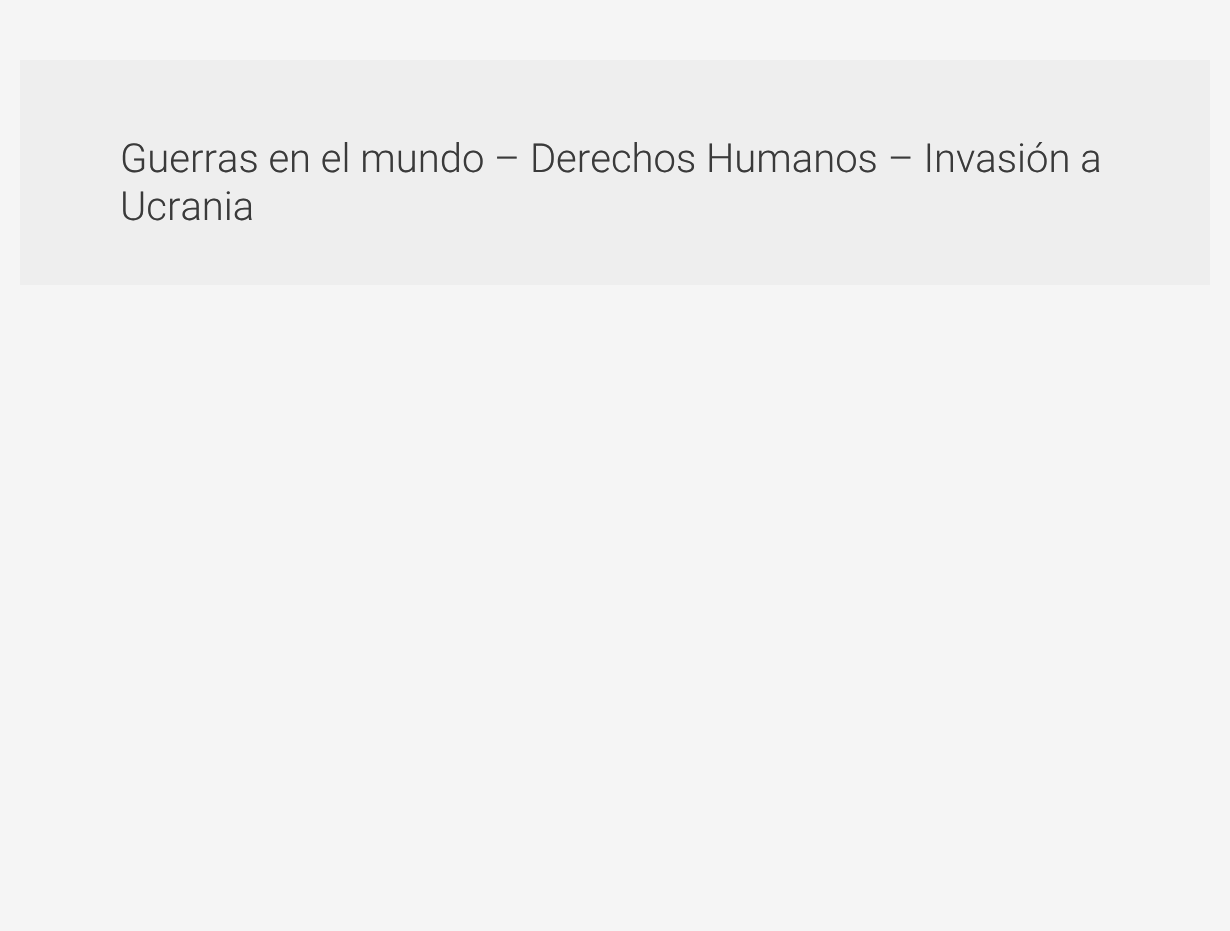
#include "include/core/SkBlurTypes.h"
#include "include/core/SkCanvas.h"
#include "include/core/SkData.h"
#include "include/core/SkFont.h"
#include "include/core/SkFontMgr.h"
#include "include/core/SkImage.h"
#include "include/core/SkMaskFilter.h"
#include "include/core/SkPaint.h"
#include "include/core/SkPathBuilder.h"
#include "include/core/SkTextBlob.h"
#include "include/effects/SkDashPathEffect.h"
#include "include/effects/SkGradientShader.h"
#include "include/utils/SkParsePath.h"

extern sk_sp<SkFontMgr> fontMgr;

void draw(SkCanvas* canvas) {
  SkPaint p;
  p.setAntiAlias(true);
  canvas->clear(SkColorSetRGB(245, 245, 245));
  p.setColor(SkColorSetRGB(238, 238, 238));
  canvas->drawRect(SkRect::MakeLTRB(20, 60, 1210, 285), p);
  SkFont font1(fontMgr->matchFamilyStyle("Roboto", SkFontStyle(300, SkFontStyle::kNormal_Width, SkFontStyle::kUpright_Slant)), 40);
  font1.setSubpixel(true);
  p.setColor(SkColorSetRGB(58, 58, 58));
  canvas->drawString("Guerras en el mundo – Derechos Humanos – Invasión a", 120, 172, font1, p);
  canvas->drawString("Ucrania", 120, 220, font1, p);
}
